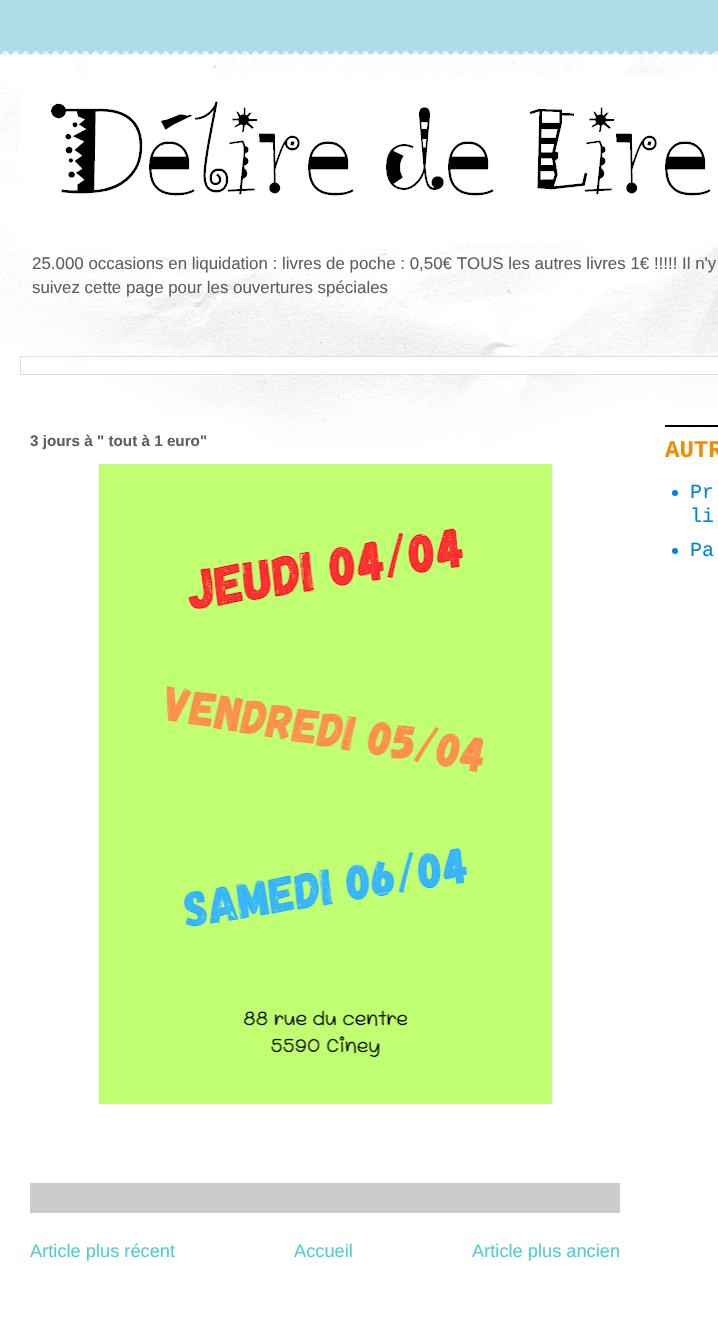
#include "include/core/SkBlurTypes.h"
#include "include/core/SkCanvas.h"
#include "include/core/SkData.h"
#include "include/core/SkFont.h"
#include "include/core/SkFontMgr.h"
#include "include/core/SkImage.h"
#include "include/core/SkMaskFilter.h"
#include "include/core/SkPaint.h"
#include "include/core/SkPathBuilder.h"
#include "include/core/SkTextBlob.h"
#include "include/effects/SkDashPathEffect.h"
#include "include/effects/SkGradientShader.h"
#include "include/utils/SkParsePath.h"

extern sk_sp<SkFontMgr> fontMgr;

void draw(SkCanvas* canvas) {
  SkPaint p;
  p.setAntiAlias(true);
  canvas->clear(SkColorSetRGB(174, 220, 233));
  canvas->drawImageRect(SkImages::DeferredFromEncodedData(SkData::MakeFromFileName("images/1.png")), SkRect::MakeLTRB(0, 51, 718, 55), SkSamplingOptions());
  p.setColor(SK_ColorWHITE);
  canvas->drawRect(SkRect::MakeLTRB(0, 55, 718, 1341), p);
  canvas->drawImageRect(SkImages::DeferredFromEncodedData(SkData::MakeFromFileName("images/2.png")), SkRect::MakeLTRB(0, 55, 718, 447), SkSamplingOptions());
  canvas->drawImageRect(SkImages::DeferredFromEncodedData(SkData::MakeFromFileName("images/3.png")), SkRect::MakeLTRB(20, 75, 718, 244), SkSamplingOptions());
  canvas->drawRect(SkRect::MakeLTRB(89, 357, 718, 374), p);
  p.setStyle(SkPaint::kStroke_Style);
  p.setStrokeWidth(1);
  p.setColor(SkColorSetRGB(221, 221, 221));
  canvas->drawRect(SkRect::MakeLTRB(20.5f, 356.5f, 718.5f, 374.5f), p);
  canvas->drawImageRect(SkImages::DeferredFromEncodedData(SkData::MakeFromFileName("images/4.png")), SkRect::MakeLTRB(99, 464, 552, 1104), SkSamplingOptions());
  p.setStyle(SkPaint::kFill_Style);
  p.setColor(SkColorSetRGB(204, 204, 204));
  canvas->drawRect(SkRect::MakeLTRB(30, 1183, 620, 1213), p);
  p.setColor(SK_ColorBLACK);
  canvas->drawRect(SkRect::MakeLTRB(665, 425, 718, 427), p);
  p.setColor(SkColorSetRGB(0, 131, 231));
  canvas->drawCircle(675, 493, 3, p);
  canvas->drawCircle(675, 551, 3, p);
  SkFont font1(fontMgr->matchFamilyStyle("Liberation Sans", SkFontStyle::Normal()), 16.9f);
  font1.setSubpixel(true);
  p.setColor(SkColorSetRGB(95, 95, 95));
  canvas->drawString("25.000 occasions en liquidation : livres de poche : 0,50€ TOUS les autres livres 1€ !!!!! Il n'y", 32, 269, font1, p);
  canvas->drawString("suivez cette page pour les ouvertures spéciales", 32, 293, font1, p);
  SkFont font2(fontMgr->matchFamilyStyle("Liberation Sans", SkFontStyle::Bold()), 15.25f);
  font2.setSubpixel(true);
  canvas->drawString("3 jours à \" tout à 1 euro\"", 30, 446, font2, p);
  SkFont font3(fontMgr->matchFamilyStyle("Liberation Sans", SkFontStyle::Normal()), 18.25f);
  font3.setSubpixel(true);
  p.setColor(SkColorSetRGB(78, 207, 212));
  canvas->drawString("Article plus récent", 30, 1257, font3, p);
  canvas->drawString("Accueil", 294, 1257, font3, p);
  canvas->drawString("Article plus ancien", 472, 1257, font3, p);
  SkFont font4(fontMgr->matchFamilyStyle("Liberation Mono", SkFontStyle::Bold()), 24);
  font4.setSubpixel(true);
  p.setColor(SkColorSetRGB(244, 140, 1));
  canvas->drawString("AUTR", 665, 457, font4, p);
  SkFont font5(fontMgr->matchFamilyStyle("Liberation Mono", SkFontStyle::Normal()), 20);
  font5.setSubpixel(true);
  p.setColor(SkColorSetRGB(0, 131, 231));
  canvas->drawString("Pr", 690, 498, font5, p);
  canvas->drawString("li", 690, 522, font5, p);
  canvas->drawString("Pa", 690, 556, font5, p);
}
